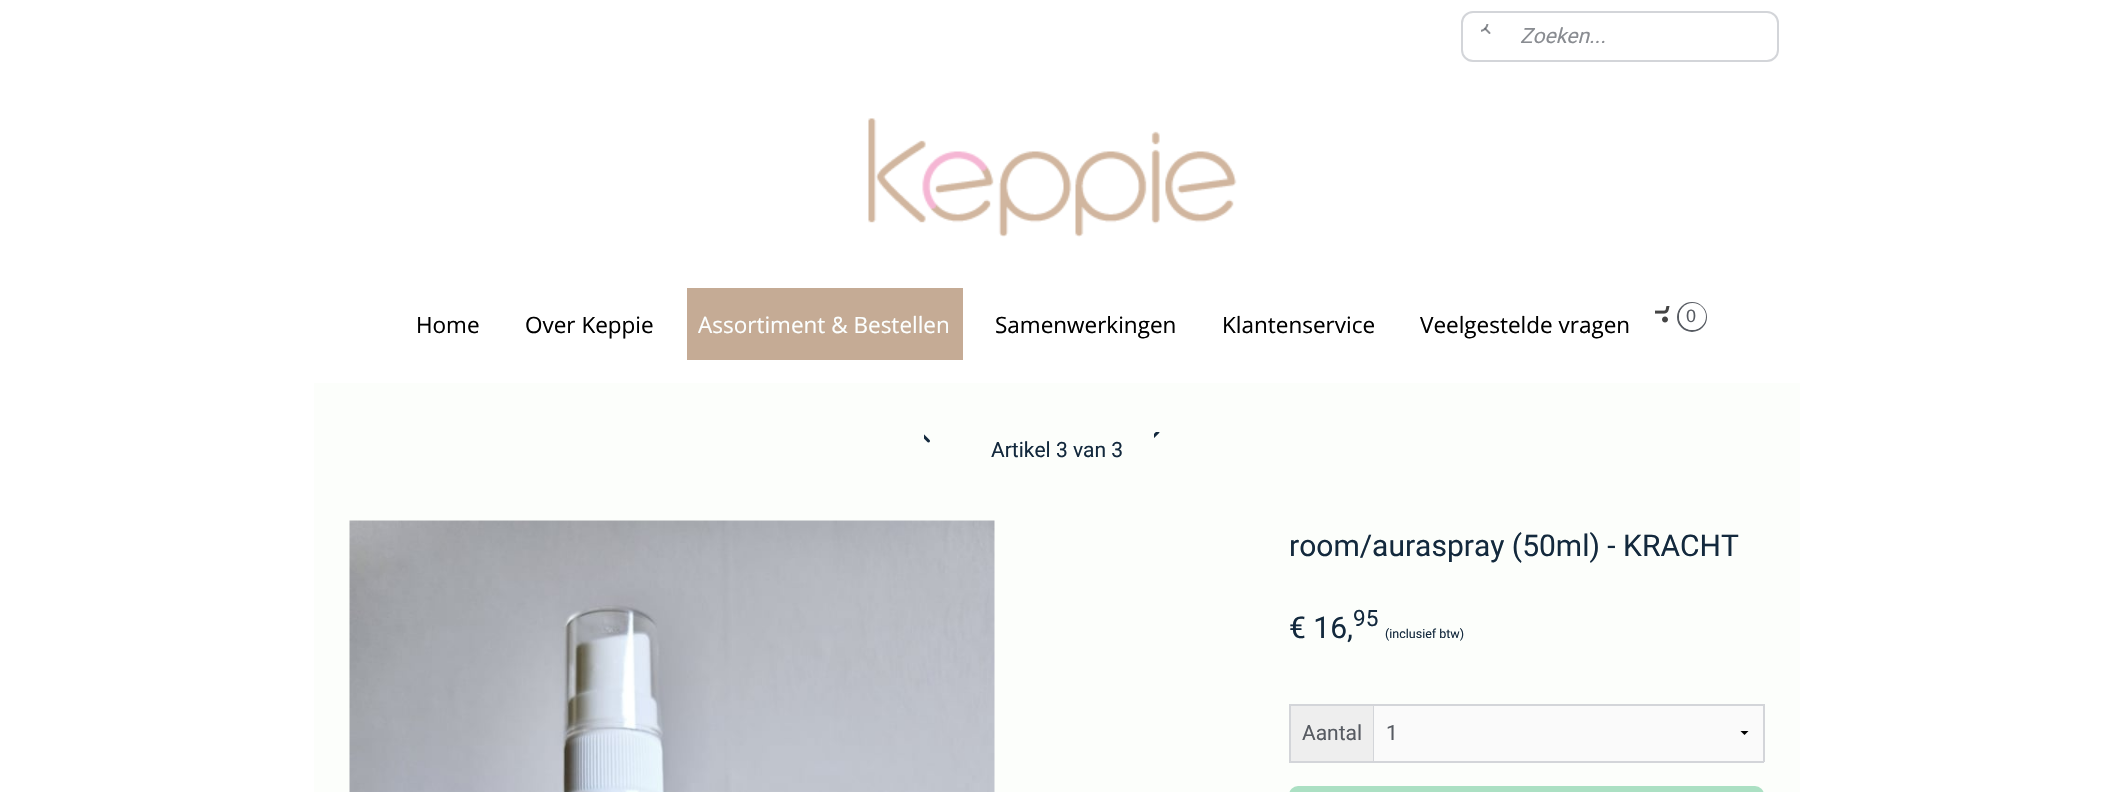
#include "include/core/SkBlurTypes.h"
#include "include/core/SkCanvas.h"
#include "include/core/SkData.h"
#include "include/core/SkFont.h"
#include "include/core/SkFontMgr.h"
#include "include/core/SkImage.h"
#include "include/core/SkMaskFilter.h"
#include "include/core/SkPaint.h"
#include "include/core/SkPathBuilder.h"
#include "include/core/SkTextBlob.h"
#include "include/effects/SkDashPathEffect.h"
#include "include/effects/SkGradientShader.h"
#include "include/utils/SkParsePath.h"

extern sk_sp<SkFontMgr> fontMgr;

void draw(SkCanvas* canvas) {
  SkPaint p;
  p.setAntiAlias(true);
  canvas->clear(SK_ColorWHITE);
  p.setStyle(SkPaint::kStroke_Style);
  p.setStrokeWidth(2);
  p.setColor(SkColorSetRGB(211, 213, 217));
  canvas->drawRoundRect(SkRect::MakeLTRB(1462, 12, 1778, 61), 11, 11, p);
  canvas->drawImageRect(SkImages::DeferredFromEncodedData(SkData::MakeFromFileName("images/1.png")), SkRect::MakeLTRB(1481, 24, 1491, 34), SkSamplingOptions());
  canvas->drawImageRect(SkImages::DeferredFromEncodedData(SkData::MakeFromFileName("images/2.png")), SkRect::MakeLTRB(868, 118, 1237, 237), SkSamplingOptions());
  p.setStyle(SkPaint::kFill_Style);
  p.setColor(SkColorSetRGB(197, 171, 149));
  canvas->drawRect(SkRect::MakeLTRB(687, 288, 963, 360), p);
  canvas->drawImageRect(SkImages::DeferredFromEncodedData(SkData::MakeFromFileName("images/3.png")), SkRect::MakeLTRB(1655, 306, 1670, 323), SkSamplingOptions());
  p.setStyle(SkPaint::kStroke_Style);
  p.setColor(SkColorSetRGB(87, 91, 98));
  canvas->drawCircle(1692, 317, 14, p);
  p.setStyle(SkPaint::kFill_Style);
  p.setColor(SK_ColorWHITE);
  canvas->drawCircle(1692.5f, 316.5f, 13.5f, p);
  p.setColor(SkColorSetRGB(252, 254, 251));
  canvas->drawRect(SkRect::MakeLTRB(314, 383, 1800, 792), p);
  canvas->drawImageRect(SkImages::DeferredFromEncodedData(SkData::MakeFromFileName("images/4.png")), SkRect::MakeLTRB(924, 434, 930, 443), SkSamplingOptions());
  canvas->drawImageRect(SkImages::DeferredFromEncodedData(SkData::MakeFromFileName("images/5.png")), SkRect::MakeLTRB(1154, 432, 1160, 438), SkSamplingOptions());
  canvas->drawImageRect(SkImages::DeferredFromEncodedData(SkData::MakeFromFileName("images/6.png")), SkRect::MakeLTRB(349, 520, 995, 792), SkSamplingOptions());
  p.setColor(SkColorSetRGB(211, 213, 217));
  canvas->drawRect(SkRect::MakeLTRB(1373, 705, 1374, 762), p);
  canvas->drawRect(SkRect::MakeLTRB(1289, 704, 1764, 706), p);
  canvas->drawRect(SkRect::MakeLTRB(1763, 704, 1765, 762), p);
  canvas->drawRect(SkRect::MakeLTRB(1289, 761, 1764, 763), p);
  canvas->drawRect(SkRect::MakeLTRB(1289, 704, 1291, 762), p);
  p.setColor(SkColorSetRGB(238, 238, 238));
  canvas->drawRect(SkRect::MakeLTRB(1291, 706, 1373, 761), p);
  p.setColor(SkColorSetRGB(250, 250, 250));
  canvas->drawRect(SkRect::MakeLTRB(1374, 706, 1763, 761), p);
  canvas->save();
  canvas->clipRect(SkRect::MakeLTRB(1727, 731, 1763, 736));
  p.setColor(SK_ColorBLACK);
  canvas->drawPath(SkPathBuilder().moveTo(1749, 730.5f).lineTo(1744.5f, 735).lineTo(1740, 730.5f).close().detach(), p);
  canvas->restore();
  p.setColor(SkColorSetRGB(171, 224, 195));
  canvas->drawRoundRect(SkRect::MakeLTRB(1289, 786, 1764, 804), 12, 12, p);
  SkFont font1(fontMgr->matchFamilyStyle("Roboto", SkFontStyle::Italic()), 21);
  font1.setSubpixel(true);
  p.setColor(SkColorSetRGB(137, 140, 145));
  canvas->drawString("Zoeken...", 1520, 43, font1, p);
  SkFont font2(fontMgr->matchFamilyStyle("Open Sans", SkFontStyle::Normal()), 22.5f);
  font2.setSubpixel(true);
  p.setColor(SK_ColorBLACK);
  canvas->drawString("Home", 416, 333, font2, p);
  canvas->drawString("Over Keppie", 525, 333, font2, p);
  p.setColor(SkColorSetRGB(252, 255, 255));
  canvas->drawString("Assortiment & Bestellen", 698, 333, font2, p);
  p.setColor(SK_ColorBLACK);
  canvas->drawString("Samenwerkingen", 995, 333, font2, p);
  canvas->drawString("Klantenservice", 1222, 333, font2, p);
  canvas->drawString("Veelgestelde vragen", 1420, 333, font2, p);
  SkFont font3(fontMgr->matchFamilyStyle("Liberation Sans", SkFontStyle::Normal()), 18);
  font3.setSubpixel(true);
  p.setColor(SkColorSetRGB(87, 91, 98));
  canvas->drawString("0", 1686, 322, font3, p);
  SkFont font4(fontMgr->matchFamilyStyle("Roboto", SkFontStyle::Normal()), 21);
  font4.setSubpixel(true);
  p.setColor(SkColorSetRGB(19, 41, 61));
  canvas->drawString("Artikel 3 van 3", 991, 457, font4, p);
  SkFont font5(fontMgr->matchFamilyStyle("Roboto", SkFontStyle::Normal()), 30);
  font5.setSubpixel(true);
  canvas->drawString("room/auraspray (50ml) - KRACHT", 1289, 556, font5, p);
  canvas->drawString("€ 16,", 1289, 638, font5, p);
  SkFont font6(fontMgr->matchFamilyStyle("Roboto", SkFontStyle::Normal()), 22.5f);
  font6.setSubpixel(true);
  canvas->drawString("95", 1353, 626, font6, p);
  SkFont font7(fontMgr->matchFamilyStyle("Roboto", SkFontStyle::Normal()), 12.5f);
  font7.setSubpixel(true);
  canvas->drawString("(inclusief btw)", 1385, 638, font7, p);
  p.setColor(SkColorSetRGB(87, 91, 98));
  canvas->drawString("Aantal", 1302, 740, font4, p);
  canvas->drawString("1", 1386, 740, font4, p);
}
